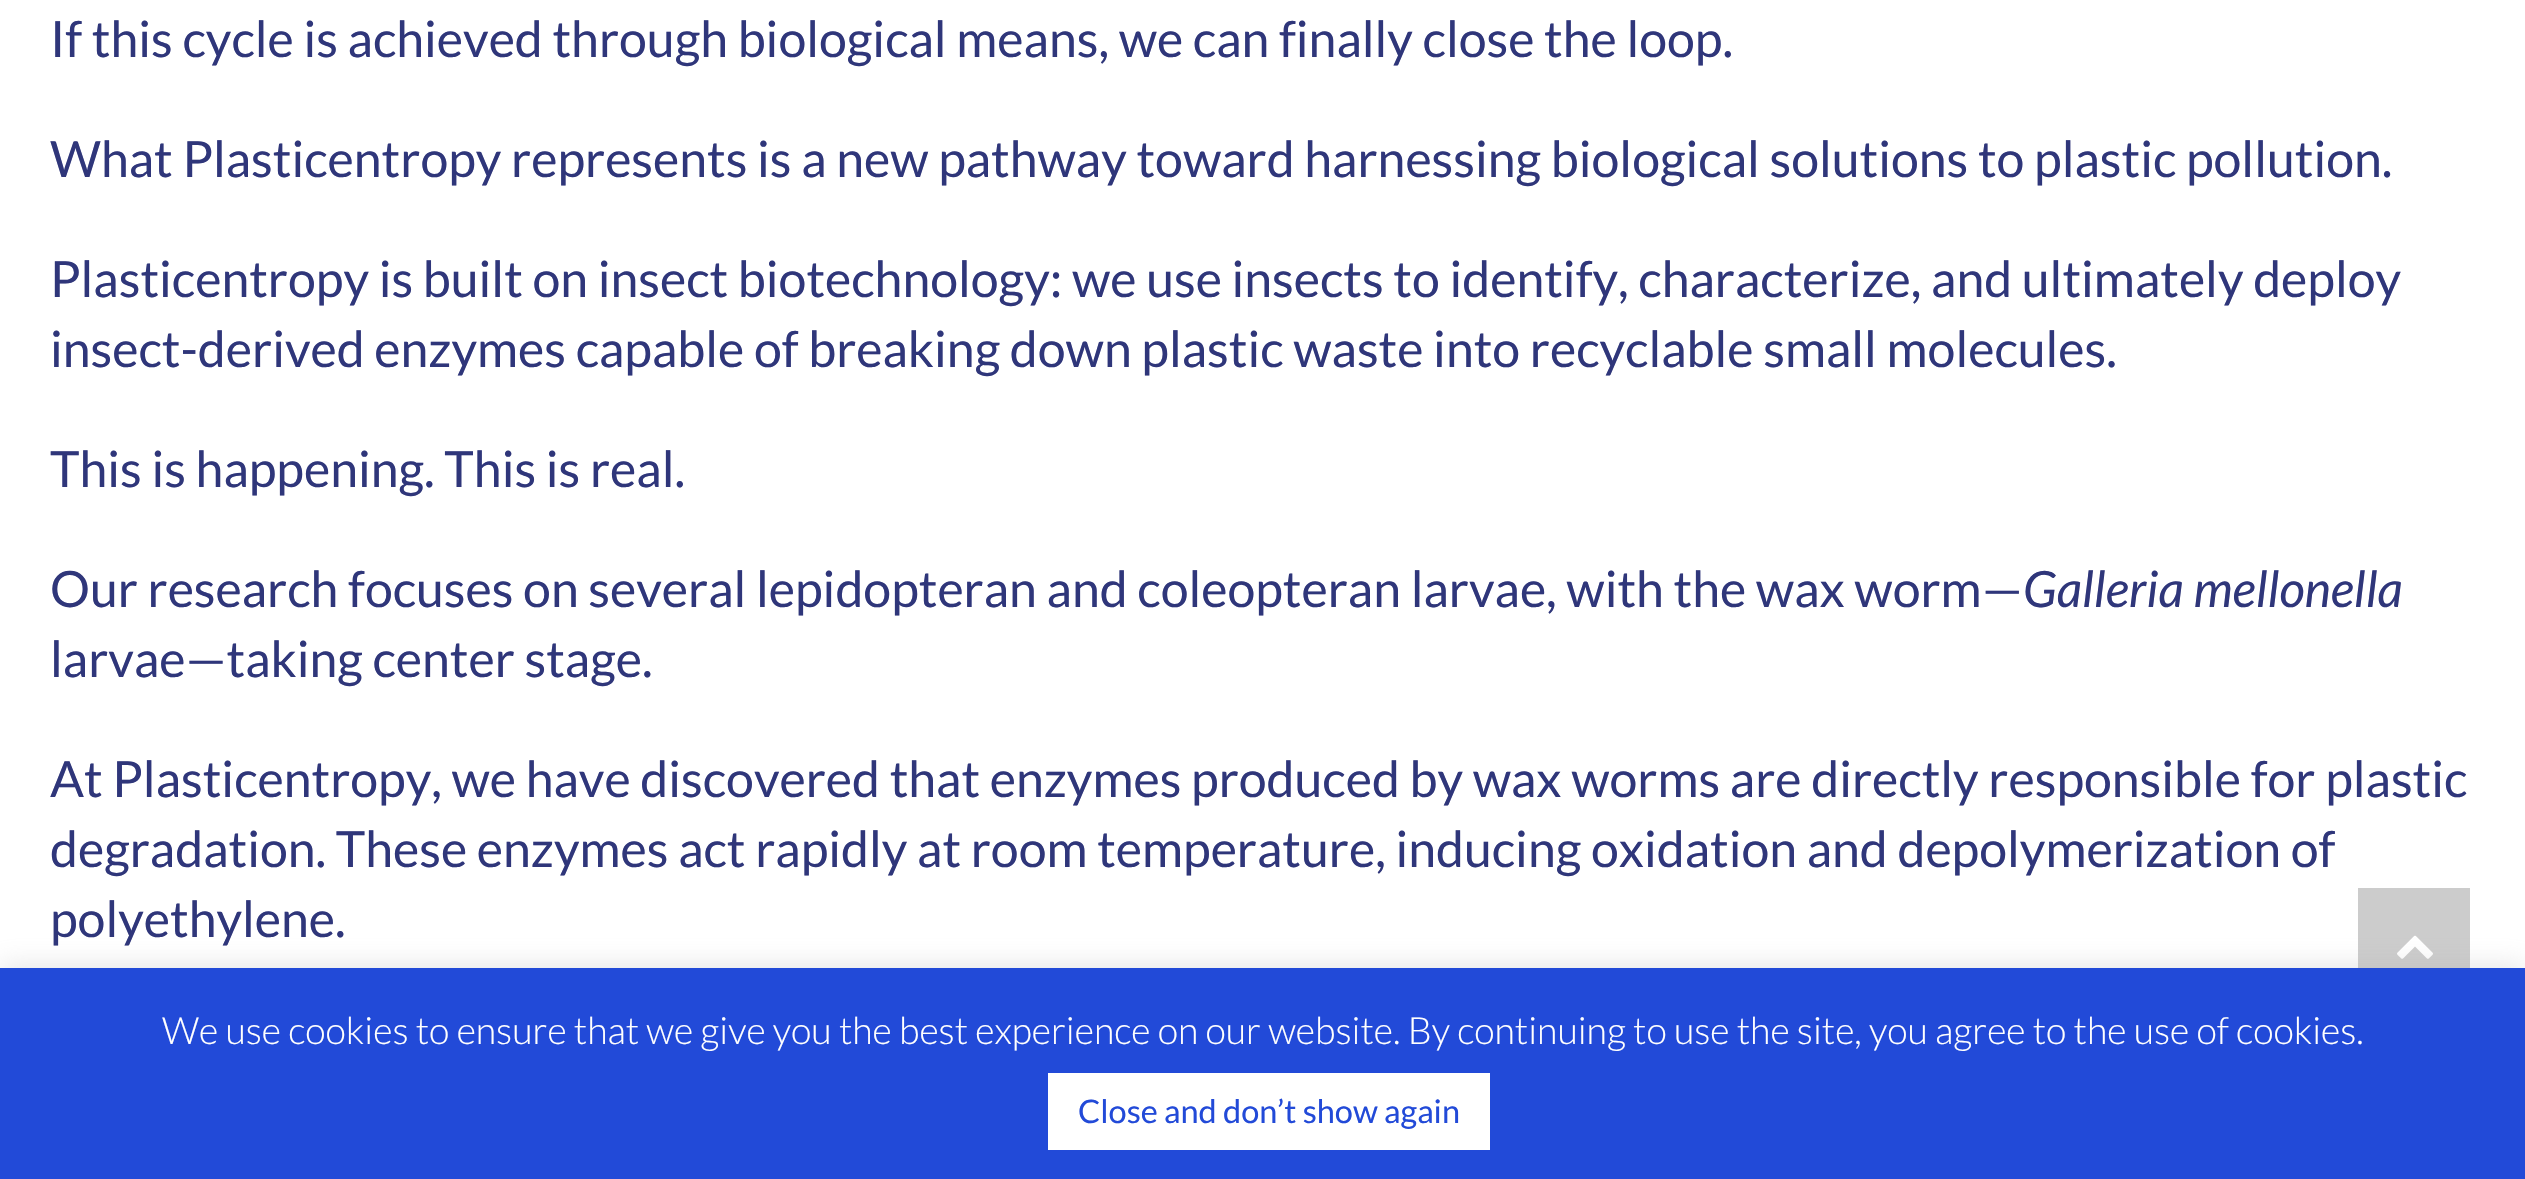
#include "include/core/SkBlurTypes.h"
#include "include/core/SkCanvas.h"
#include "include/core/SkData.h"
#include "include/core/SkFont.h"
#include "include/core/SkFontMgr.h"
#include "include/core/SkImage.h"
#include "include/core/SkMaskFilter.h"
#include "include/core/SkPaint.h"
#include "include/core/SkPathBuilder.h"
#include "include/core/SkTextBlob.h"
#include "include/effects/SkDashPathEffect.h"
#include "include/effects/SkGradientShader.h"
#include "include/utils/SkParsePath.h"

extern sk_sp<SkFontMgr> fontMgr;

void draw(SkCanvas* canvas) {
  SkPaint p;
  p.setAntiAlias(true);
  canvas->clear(SK_ColorWHITE);
  p.setColor(SkColorSetRGB(204, 204, 204));
  canvas->drawRect(SkRect::MakeLTRB(2358, 888, 2470, 968), p);
  canvas->drawImageRect(SkImages::DeferredFromEncodedData(SkData::MakeFromFileName("images/1.png")), SkRect::MakeLTRB(2397, 935, 2433, 959), SkSamplingOptions());
  p.setColor(SkColorSetARGB(77, 172, 171, 171));
  p.setMaskFilter(SkMaskFilter::MakeBlur(kNormal_SkBlurStyle, 12.5f));
  canvas->drawRect(SkRect::MakeLTRB(0, 965, 2525, 1178), p);
  p.setMaskFilter(nullptr);
  p.setColor(SkColorSetRGB(34, 74, 216));
  canvas->drawRect(SkRect::MakeLTRB(0, 968, 2525, 1179), p);
  p.setColor(SK_ColorWHITE);
  canvas->drawRect(SkRect::MakeLTRB(1048, 1073, 1490, 1150), p);
  SkFont font1(fontMgr->matchFamilyStyle("Lato", SkFontStyle::Normal()), 50);
  font1.setSubpixel(true);
  p.setColor(SkColorSetRGB(47, 54, 122));
  canvas->drawString("If this cycle is achieved through biological means, we can finally close the loop.", 50, 57, font1, p);
  canvas->drawString("What Plasticentropy represents is a new pathway toward harnessing biological solutions to plastic pollution.", 50, 177, font1, p);
  canvas->drawString("Plasticentropy is built on insect biotechnology: we use insects to identify, characterize, and ultimately deploy", 50, 297, font1, p);
  canvas->drawString("insect-derived enzymes capable of breaking down plastic waste into recyclable small molecules.", 50, 367, font1, p);
  canvas->drawString("This is happening. This is real.", 50, 487, font1, p);
  canvas->drawString("Our research focuses on several lepidopteran and coleopteran larvae, with the wax worm—", 50, 607, font1, p);
  SkFont font2(fontMgr->matchFamilyStyle("Lato", SkFontStyle::Italic()), 50);
  font2.setSubpixel(true);
  canvas->drawString("Galleria mellonella", 2023, 607, font2, p);
  canvas->drawString("larvae—taking center stage.", 50, 677, font1, p);
  canvas->drawString("At Plasticentropy, we have discovered that enzymes produced by wax worms are directly responsible for plastic", 50, 797, font1, p);
  canvas->drawString("degradation. These enzymes act rapidly at room temperature, inducing oxidation and depolymerization of", 50, 867, font1, p);
  canvas->drawString("polyethylene.", 50, 937, font1, p);
  SkFont font3(fontMgr->matchFamilyStyle("Lato", SkFontStyle(300, SkFontStyle::kNormal_Width, SkFontStyle::kUpright_Slant)), 37.5f);
  font3.setSubpixel(true);
  p.setColor(SK_ColorWHITE);
  canvas->drawString("We use cookies to ensure that we give you the best experience on our website. By continuing to use the site, you agree to the use of cookies.", 162, 1044, font3, p);
  SkFont font4(fontMgr->matchFamilyStyle("Lato", SkFontStyle::Normal()), 32.5f);
  font4.setSubpixel(true);
  p.setColor(SkColorSetRGB(34, 74, 216));
  canvas->drawString("Close and don’t show again", 1078, 1123, font4, p);
}
